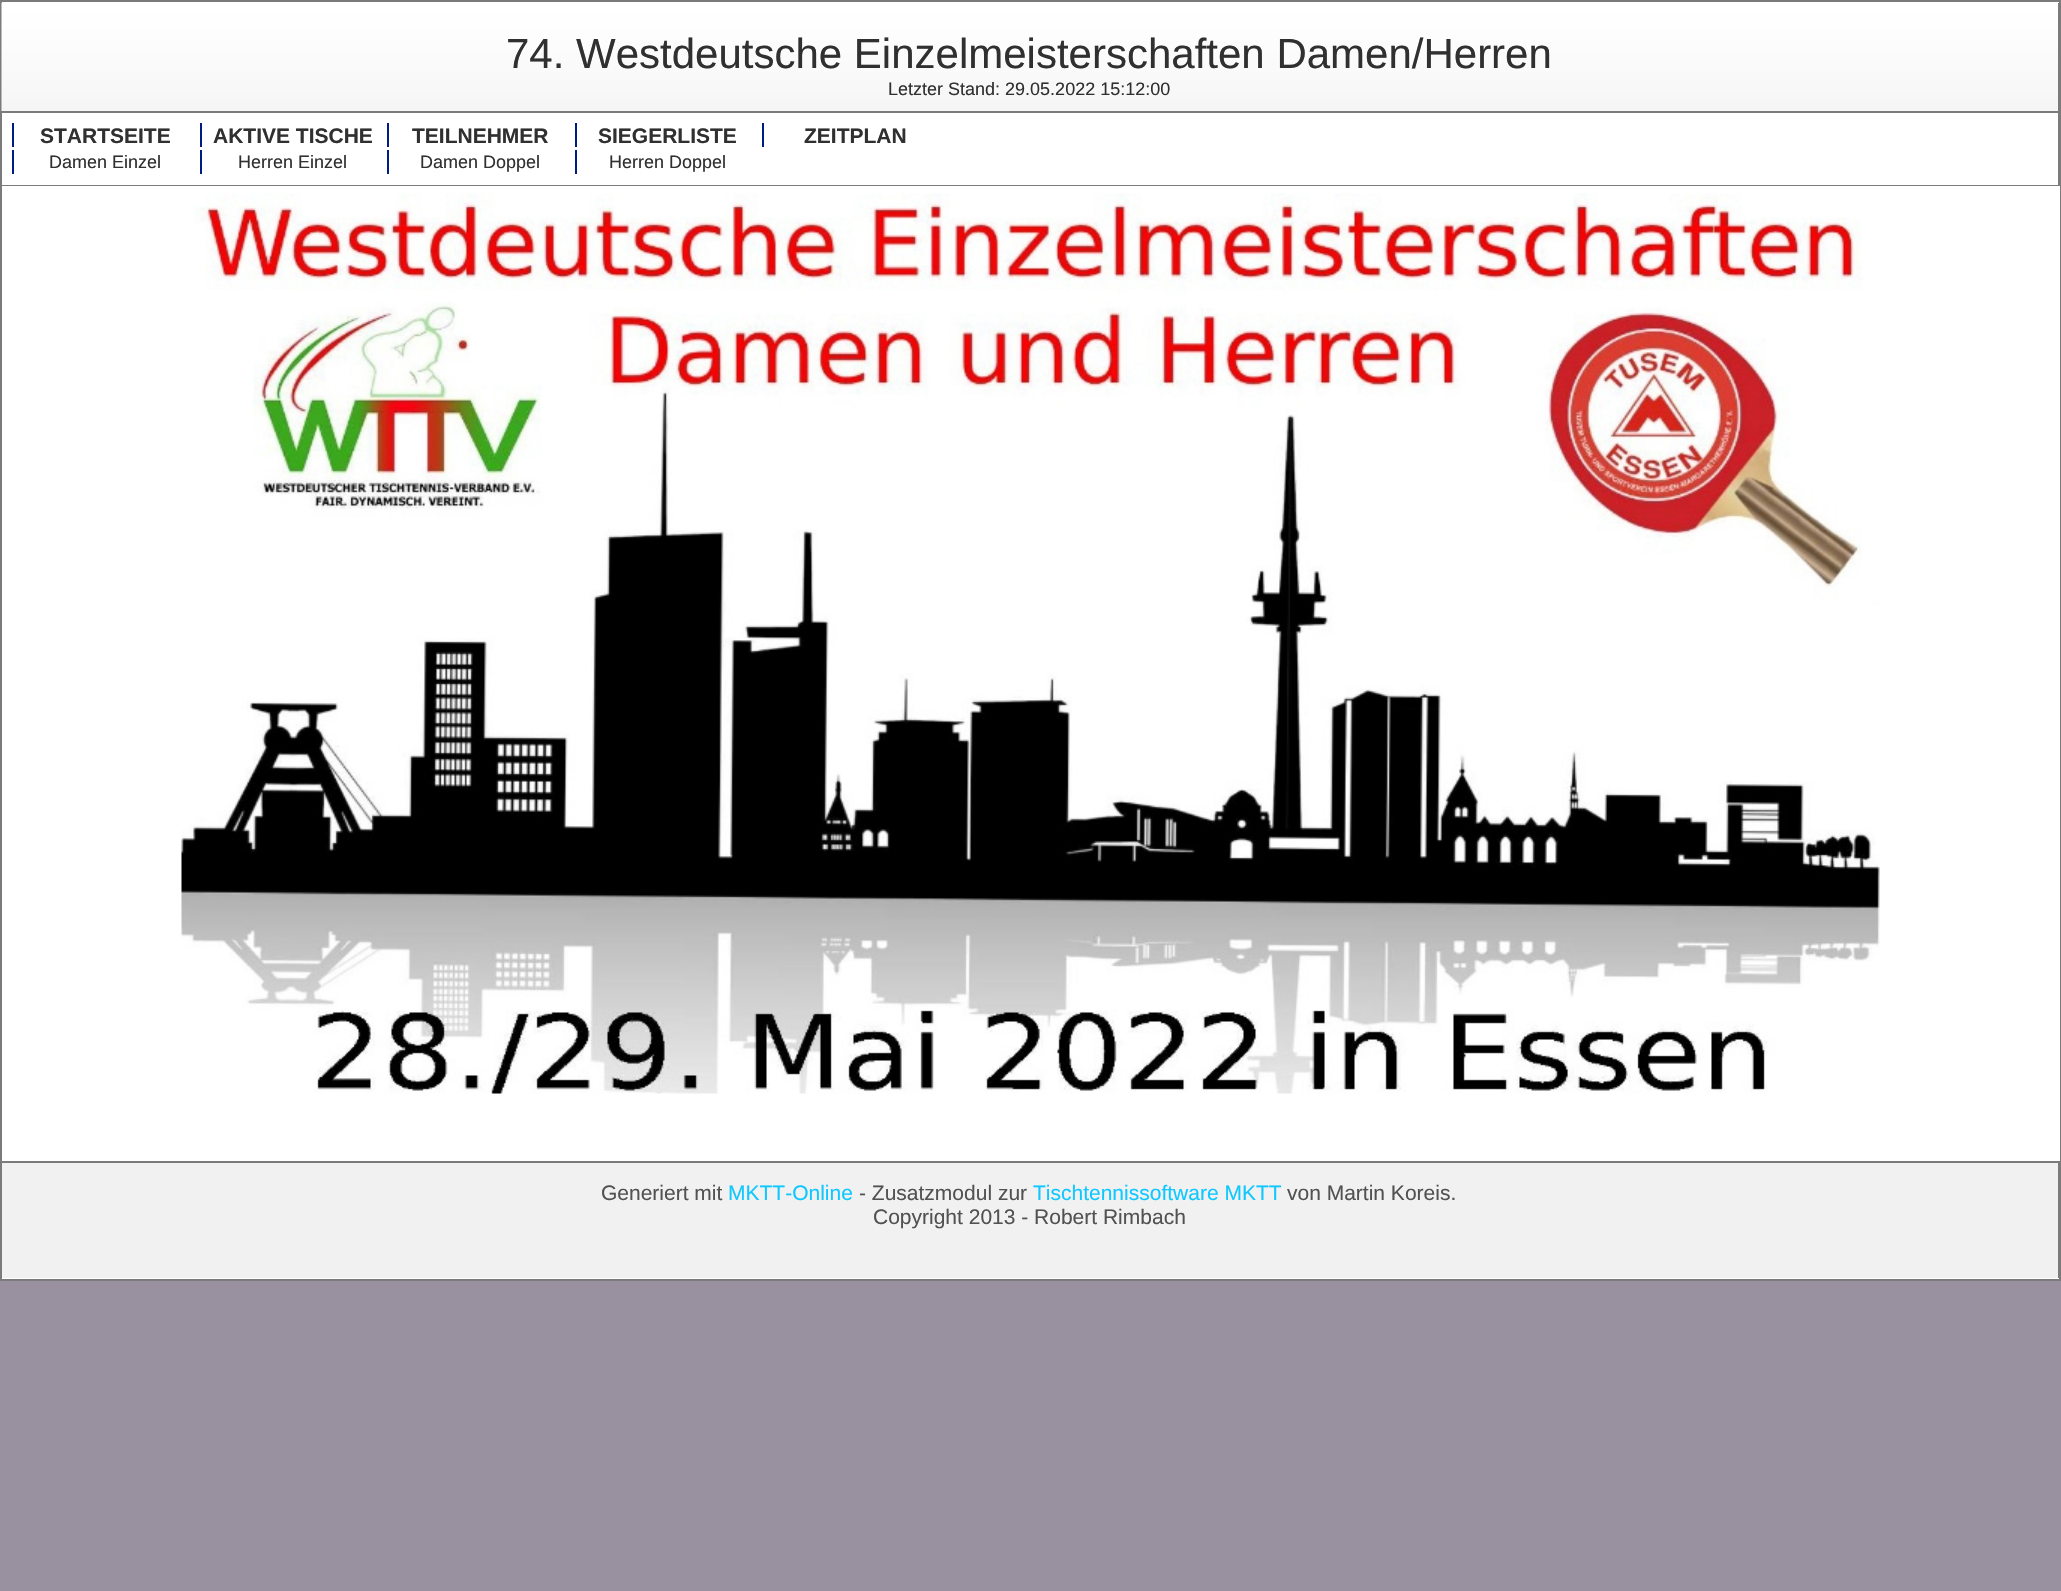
#include "include/core/SkBlurTypes.h"
#include "include/core/SkCanvas.h"
#include "include/core/SkData.h"
#include "include/core/SkFont.h"
#include "include/core/SkFontMgr.h"
#include "include/core/SkImage.h"
#include "include/core/SkMaskFilter.h"
#include "include/core/SkPaint.h"
#include "include/core/SkPathBuilder.h"
#include "include/core/SkTextBlob.h"
#include "include/effects/SkDashPathEffect.h"
#include "include/effects/SkGradientShader.h"
#include "include/utils/SkParsePath.h"

extern sk_sp<SkFontMgr> fontMgr;

void draw(SkCanvas* canvas) {
  SkPaint p;
  p.setAntiAlias(true);
  canvas->clear(SkColorSetRGB(153, 145, 159));
  p.setColor(SK_ColorWHITE);
  canvas->drawRect(SkRect::MakeLTRB(1, 1, 2060, 1280), p);
  p.setStyle(SkPaint::kStroke_Style);
  p.setStrokeWidth(2);
  p.setColor(SkColorSetRGB(123, 123, 123));
  canvas->drawRect(SkRect::MakeLTRB(1, 1, 2060, 1280), p);
  canvas->drawImageRect(SkImages::DeferredFromEncodedData(SkData::MakeFromFileName("images/1.png")), SkRect::MakeLTRB(1, 3, 2058, 111), SkSamplingOptions());
  p.setStyle(SkPaint::kFill_Style);
  canvas->drawRect(SkRect::MakeLTRB(2058, 3, 2059, 111), p);
  canvas->drawRect(SkRect::MakeLTRB(2, 111, 2060, 113), p);
  canvas->drawRect(SkRect::MakeLTRB(2058, 111, 2059, 186), p);
  canvas->drawRect(SkRect::MakeLTRB(2, 185, 2060, 186), p);
  p.setColor(SkColorSetRGB(0, 28, 129));
  canvas->drawRect(SkRect::MakeLTRB(12, 123, 14, 147), p);
  canvas->drawRect(SkRect::MakeLTRB(200, 123, 202, 147), p);
  canvas->drawRect(SkRect::MakeLTRB(387, 123, 389, 147), p);
  canvas->drawRect(SkRect::MakeLTRB(575, 123, 577, 147), p);
  canvas->drawRect(SkRect::MakeLTRB(762, 123, 764, 147), p);
  canvas->drawRect(SkRect::MakeLTRB(12, 150, 14, 174), p);
  canvas->drawRect(SkRect::MakeLTRB(200, 150, 202, 174), p);
  canvas->drawRect(SkRect::MakeLTRB(387, 150, 389, 174), p);
  canvas->drawRect(SkRect::MakeLTRB(575, 150, 577, 174), p);
  p.setColor(SK_ColorWHITE);
  canvas->drawRect(SkRect::MakeLTRB(2059, 186, 2060, 1161), p);
  canvas->drawImageRect(SkImages::DeferredFromEncodedData(SkData::MakeFromFileName("images/2.png")), SkRect::MakeLTRB(181, 193, 1880, 1094), SkSamplingOptions());
  p.setColor(SkColorSetRGB(241, 241, 241));
  canvas->drawRect(SkRect::MakeLTRB(2, 1163, 2058, 1278), p);
  p.setColor(SkColorSetRGB(123, 123, 123));
  canvas->drawRect(SkRect::MakeLTRB(2, 1161, 2060, 1163), p);
  canvas->drawRect(SkRect::MakeLTRB(2058, 1161, 2059, 1278), p);
  SkFont font1(fontMgr->matchFamilyStyle("Liberation Sans", SkFontStyle::Normal()), 42);
  font1.setSubpixel(true);
  p.setColor(SkColorSetRGB(48, 48, 48));
  canvas->drawString("74. Westdeutsche Einzelmeisterschaften Damen/Herren", 506, 68, font1, p);
  SkFont font2(fontMgr->matchFamilyStyle("Liberation Sans", SkFontStyle::Normal()), 18);
  font2.setSubpixel(true);
  canvas->drawString("Letzter Stand: 29.05.2022 15:12:00", 888, 95, font2, p);
  SkFont font3(fontMgr->matchFamilyStyle("Liberation Sans", SkFontStyle::Bold()), 21);
  font3.setSubpixel(true);
  canvas->drawString("STARTSEITE", 40, 143, font3, p);
  canvas->drawString("AKTIVE TISCHE", 213, 143, font3, p);
  canvas->drawString("TEILNEHMER", 412, 143, font3, p);
  canvas->drawString("SIEGERLISTE", 598, 143, font3, p);
  canvas->drawString("ZEITPLAN", 804, 143, font3, p);
  canvas->drawString("Damen Einzel", 49, 168, font2, p);
  canvas->drawString("Herren Einzel", 238, 168, font2, p);
  canvas->drawString("Damen Doppel", 420, 168, font2, p);
  canvas->drawString("Herren Doppel", 609, 168, font2, p);
  SkFont font4(fontMgr->matchFamilyStyle("Liberation Sans", SkFontStyle::Normal()), 21);
  font4.setSubpixel(true);
  p.setColor(SkColorSetRGB(82, 82, 82));
  canvas->drawString("Generiert mit", 601, 1200, font4, p);
  p.setColor(SkColorSetRGB(14, 200, 255));
  canvas->drawString("MKTT-Online", 728, 1200, font4, p);
  p.setColor(SkColorSetRGB(82, 82, 82));
  canvas->drawString("- Zusatzmodul zur", 859, 1200, font4, p);
  p.setColor(SkColorSetRGB(14, 200, 255));
  canvas->drawString("Tischtennissoftware MKTT", 1033, 1200, font4, p);
  p.setColor(SkColorSetRGB(82, 82, 82));
  canvas->drawString("von Martin Koreis.", 1287, 1200, font4, p);
  canvas->drawString("Copyright 2013 - Robert Rimbach", 873, 1224, font4, p);
}
